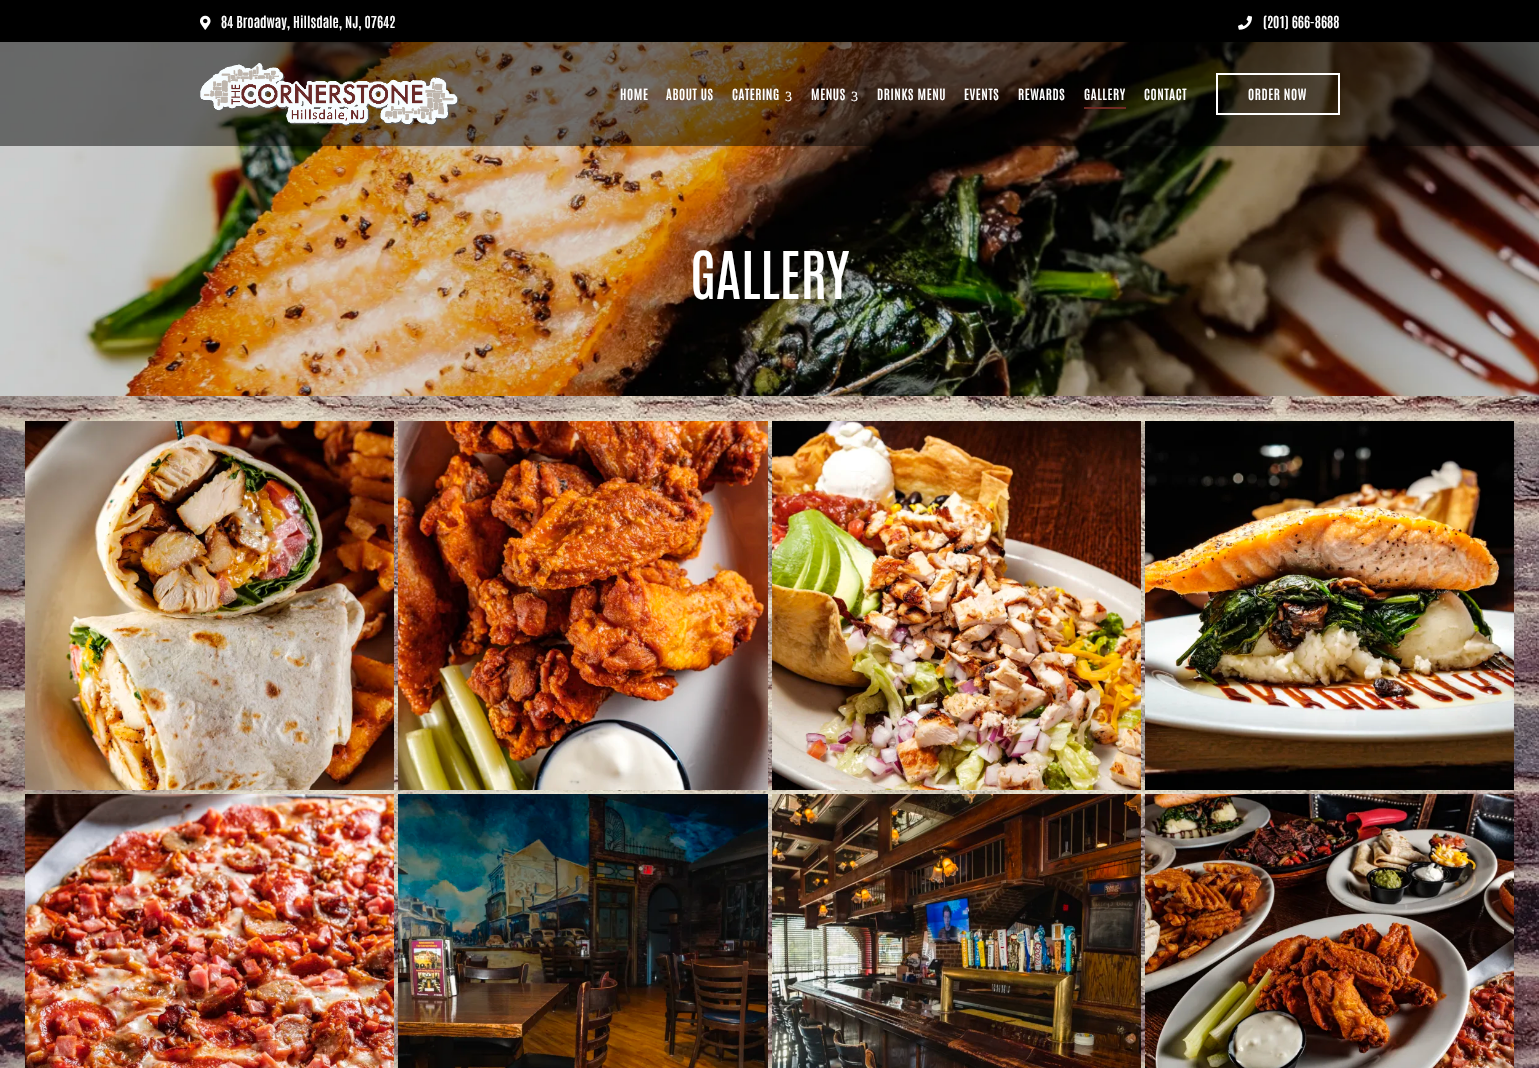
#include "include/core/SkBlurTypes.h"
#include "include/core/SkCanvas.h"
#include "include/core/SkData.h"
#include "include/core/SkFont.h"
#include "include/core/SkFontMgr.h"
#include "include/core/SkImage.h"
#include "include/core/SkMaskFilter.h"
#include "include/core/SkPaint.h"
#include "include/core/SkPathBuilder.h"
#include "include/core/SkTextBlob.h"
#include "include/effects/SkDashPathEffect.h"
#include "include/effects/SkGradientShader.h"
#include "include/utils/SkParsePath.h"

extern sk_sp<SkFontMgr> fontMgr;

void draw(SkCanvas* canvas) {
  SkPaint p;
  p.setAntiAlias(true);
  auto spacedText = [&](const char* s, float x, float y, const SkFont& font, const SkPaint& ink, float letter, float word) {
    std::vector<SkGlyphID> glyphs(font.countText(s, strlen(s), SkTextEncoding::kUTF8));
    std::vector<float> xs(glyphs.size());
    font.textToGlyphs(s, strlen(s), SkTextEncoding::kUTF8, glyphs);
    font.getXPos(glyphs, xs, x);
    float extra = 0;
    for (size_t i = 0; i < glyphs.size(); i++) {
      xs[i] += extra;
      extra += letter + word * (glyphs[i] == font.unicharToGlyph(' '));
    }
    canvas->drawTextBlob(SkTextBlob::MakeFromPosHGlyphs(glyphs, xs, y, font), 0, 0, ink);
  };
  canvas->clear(SK_ColorWHITE);
  canvas->drawImageRect(SkImages::DeferredFromEncodedData(SkData::MakeFromFileName("images/1.png")), SkRect::MakeLTRB(0, 396, 1539, 1068), SkSamplingOptions());
  p.setColor(SK_ColorBLACK);
  canvas->drawRect(SkRect::MakeLTRB(0, 0, 1539, 42), p);
  canvas->drawImageRect(SkImages::DeferredFromEncodedData(SkData::MakeFromFileName("images/2.png")), SkRect::MakeLTRB(200, 15, 211, 30), SkSamplingOptions());
  canvas->drawImageRect(SkImages::DeferredFromEncodedData(SkData::MakeFromFileName("images/3.png")), SkRect::MakeLTRB(1238, 15, 1252, 30), SkSamplingOptions());
  canvas->drawImageRect(SkImages::DeferredFromEncodedData(SkData::MakeFromFileName("images/5.png")), SkRect::MakeLTRB(0, 42, 1539, 396), SkSamplingOptions());
  p.setColor(SkColorSetARGB(125, 0, 0, 0));
  canvas->drawRect(SkRect::MakeLTRB(0, 42, 1539, 146), p);
  canvas->drawImageRect(SkImages::DeferredFromEncodedData(SkData::MakeFromFileName("images/4.png")), SkRect::MakeLTRB(200, 63, 459, 126), SkSamplingOptions());
  p.setColor(SkColorSetRGB(111, 42, 36));
  canvas->drawRect(SkRect::MakeLTRB(1084, 107, 1126, 109), p);
  p.setStyle(SkPaint::kStroke_Style);
  p.setStrokeWidth(2);
  p.setColor(SK_ColorWHITE);
  canvas->drawRect(SkRect::MakeLTRB(1217, 74, 1339, 114), p);
  canvas->drawImageRect(SkImages::DeferredFromEncodedData(SkData::MakeFromFileName("images/6.png")), SkRect::MakeLTRB(25, 421, 394, 790), SkSamplingOptions());
  canvas->drawImageRect(SkImages::DeferredFromEncodedData(SkData::MakeFromFileName("images/7.png")), SkRect::MakeLTRB(398, 421, 768, 790), SkSamplingOptions());
  canvas->drawImageRect(SkImages::DeferredFromEncodedData(SkData::MakeFromFileName("images/8.png")), SkRect::MakeLTRB(772, 421, 1141, 790), SkSamplingOptions());
  canvas->drawImageRect(SkImages::DeferredFromEncodedData(SkData::MakeFromFileName("images/9.png")), SkRect::MakeLTRB(1145, 421, 1514, 790), SkSamplingOptions());
  canvas->drawImageRect(SkImages::DeferredFromEncodedData(SkData::MakeFromFileName("images/10.png")), SkRect::MakeLTRB(25, 794, 394, 1068), SkSamplingOptions());
  canvas->drawImageRect(SkImages::DeferredFromEncodedData(SkData::MakeFromFileName("images/11.png")), SkRect::MakeLTRB(398, 794, 768, 1068), SkSamplingOptions());
  canvas->drawImageRect(SkImages::DeferredFromEncodedData(SkData::MakeFromFileName("images/12.png")), SkRect::MakeLTRB(772, 794, 1141, 1068), SkSamplingOptions());
  canvas->drawImageRect(SkImages::DeferredFromEncodedData(SkData::MakeFromFileName("images/13.png")), SkRect::MakeLTRB(1145, 794, 1514, 1068), SkSamplingOptions());
  SkFont font1(fontMgr->matchFamilyStyle("Antonio", SkFontStyle(600, SkFontStyle::kNormal_Width, SkFontStyle::kUpright_Slant)), 14);
  font1.setSubpixel(true);
  p.setStyle(SkPaint::kFill_Style);
  canvas->drawString("84 Broadway, Hillsdale, NJ, 07642", 221, 28, font1, p);
  canvas->drawString("(201) 666-8688", 1263, 28, font1, p);
  SkFont font2(fontMgr->matchFamilyStyle("Antonio", SkFontStyle(600, SkFontStyle::kNormal_Width, SkFontStyle::kUpright_Slant)), 13);
  font2.setSubpixel(true);
  spacedText("HOME", 620, 100, font2, p, 0.6f, 0);
  spacedText("ABOUT US", 666, 100, font2, p, 0.6f, 0);
  spacedText("CATERING", 732, 100, font2, p, 0.6f, 0);
  SkFont font3(fontMgr->matchFamilyStyle("Liberation Serif", SkFontStyle::Normal()), 14);
  font3.setSubpixel(true);
  spacedText("3", 785, 101, font3, p, 0.6f, 0);
  spacedText("MENUS", 811, 100, font2, p, 0.6f, 0);
  spacedText("3", 851, 101, font3, p, 0.6f, 0);
  spacedText("DRINKS MENU", 877, 100, font2, p, 0.6f, 0);
  spacedText("EVENTS", 964, 100, font2, p, 0.6f, 0);
  spacedText("REWARDS", 1018, 100, font2, p, 0.6f, 0);
  spacedText("GALLERY", 1084, 100, font2, p, 0.6f, 0);
  spacedText("CONTACT", 1144, 100, font2, p, 0.6f, 0);
  spacedText("ORDER NOW", 1248, 100, font2, p, 0.6f, 0);
  SkFont font4(fontMgr->matchFamilyStyle("Antonio", SkFontStyle(500, SkFontStyle::kNormal_Width, SkFontStyle::kUpright_Slant)), 56);
  font4.setSubpixel(true);
  canvas->drawString("GALLERY", 690, 299, font4, p);
}
